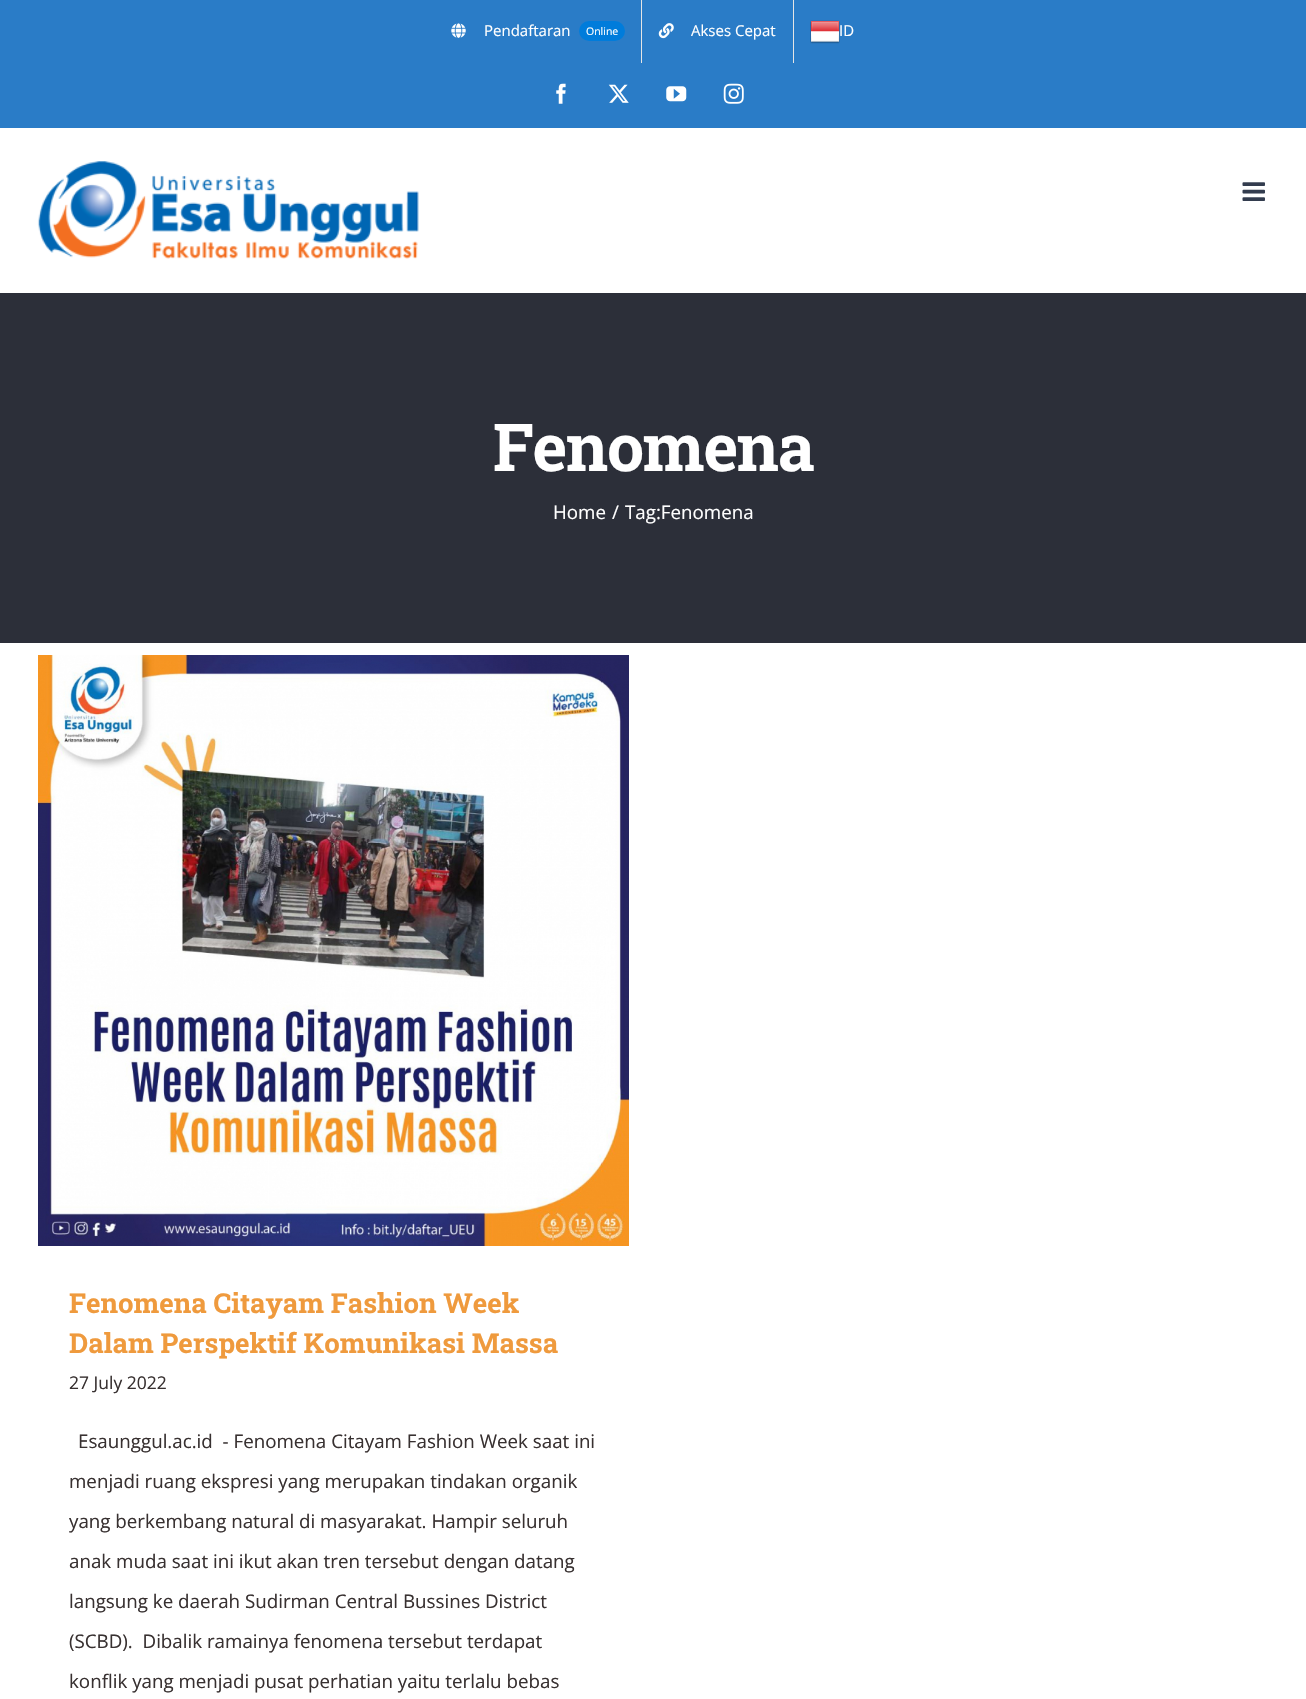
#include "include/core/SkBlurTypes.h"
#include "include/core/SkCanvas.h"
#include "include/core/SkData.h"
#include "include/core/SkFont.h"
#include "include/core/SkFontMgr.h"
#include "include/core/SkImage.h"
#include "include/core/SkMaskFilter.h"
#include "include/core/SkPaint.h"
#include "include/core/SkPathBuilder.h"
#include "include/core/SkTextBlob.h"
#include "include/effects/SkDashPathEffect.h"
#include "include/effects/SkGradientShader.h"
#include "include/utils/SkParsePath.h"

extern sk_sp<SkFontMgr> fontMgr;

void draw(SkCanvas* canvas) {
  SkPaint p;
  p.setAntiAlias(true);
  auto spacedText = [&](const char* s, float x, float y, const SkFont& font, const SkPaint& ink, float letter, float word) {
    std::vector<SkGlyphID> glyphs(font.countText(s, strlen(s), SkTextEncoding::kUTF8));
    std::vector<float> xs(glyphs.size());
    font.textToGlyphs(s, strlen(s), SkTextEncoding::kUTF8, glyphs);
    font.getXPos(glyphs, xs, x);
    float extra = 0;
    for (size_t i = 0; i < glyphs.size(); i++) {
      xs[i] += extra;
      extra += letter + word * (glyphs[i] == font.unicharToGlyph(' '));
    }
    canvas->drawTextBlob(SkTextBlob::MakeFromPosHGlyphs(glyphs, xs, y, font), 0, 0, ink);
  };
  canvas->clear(SK_ColorWHITE);
  p.setColor(SkColorSetRGB(42, 124, 199));
  canvas->drawRect(SkRect::MakeLTRB(0, 0, 1306, 128), p);
  canvas->drawImageRect(SkImages::DeferredFromEncodedData(SkData::MakeFromFileName("images/1.png")), SkRect::MakeLTRB(451, 23, 466, 38), SkSamplingOptions());
  p.setColor(SkColorSetRGB(0, 124, 219));
  canvas->drawRoundRect(SkRect::MakeLTRB(579, 21, 625, 41), 10, 10, p);
  p.setColor(SkColorSetRGB(229, 229, 229));
  canvas->drawRect(SkRect::MakeLTRB(641, 0, 642, 63), p);
  canvas->drawImageRect(SkImages::DeferredFromEncodedData(SkData::MakeFromFileName("images/2.png")), SkRect::MakeLTRB(658, 23, 674, 39), SkSamplingOptions());
  canvas->drawRect(SkRect::MakeLTRB(793, 0, 794, 63), p);
  canvas->drawImageRect(SkImages::DeferredFromEncodedData(SkData::MakeFromFileName("images/3.png")), SkRect::MakeLTRB(810, 20, 840, 44), SkSamplingOptions());
  canvas->drawImageRect(SkImages::DeferredFromEncodedData(SkData::MakeFromFileName("images/4.png")), SkRect::MakeLTRB(556, 83, 566, 104), SkSamplingOptions());
  canvas->drawImageRect(SkImages::DeferredFromEncodedData(SkData::MakeFromFileName("images/5.png")), SkRect::MakeLTRB(608, 84, 629, 103), SkSamplingOptions());
  canvas->drawImageRect(SkImages::DeferredFromEncodedData(SkData::MakeFromFileName("images/6.png")), SkRect::MakeLTRB(666, 86, 687, 102), SkSamplingOptions());
  canvas->drawImageRect(SkImages::DeferredFromEncodedData(SkData::MakeFromFileName("images/7.png")), SkRect::MakeLTRB(723, 83, 744, 104), SkSamplingOptions());
  canvas->drawImageRect(SkImages::DeferredFromEncodedData(SkData::MakeFromFileName("images/8.png")), SkRect::MakeLTRB(37, 161, 419, 259), SkSamplingOptions());
  canvas->drawImageRect(SkImages::DeferredFromEncodedData(SkData::MakeFromFileName("images/9.png")), SkRect::MakeLTRB(1242, 182, 1265, 201), SkSamplingOptions());
  p.setColor(SkColorSetRGB(44, 47, 57));
  canvas->drawRect(SkRect::MakeLTRB(0, 293, 1306, 643), p);
  canvas->drawImageRect(SkImages::DeferredFromEncodedData(SkData::MakeFromFileName("images/10.png")), SkRect::MakeLTRB(38, 655, 629, 1246), SkSamplingOptions());
  SkFont font1(fontMgr->matchFamilyStyle("Open Sans", SkFontStyle::Normal()), 15);
  font1.setSubpixel(true);
  p.setColor(SK_ColorWHITE);
  canvas->drawString("Pendaftaran", 484, 36, font1, p);
  SkFont font2(fontMgr->matchFamilyStyle("Open Sans", SkFontStyle::Normal()), 10.5f);
  font2.setSubpixel(true);
  canvas->drawString("Online", 586, 35, font2, p);
  canvas->drawString("Akses Cepat", 691, 36, font1, p);
  canvas->drawString("ID", 839, 36, font1, p);
  SkFont font3(fontMgr->matchFamilyStyle("Roboto Slab", SkFontStyle::Bold()), 66);
  font3.setSubpixel(true);
  spacedText("Fenomena", 493, 471, font3, p, -1.25f, 0);
  SkFont font4(fontMgr->matchFamilyStyle("Open Sans", SkFontStyle::Normal()), 18.75f);
  font4.setSubpixel(true);
  canvas->drawString("Home", 553, 519, font4, p);
  canvas->drawString("/", 612, 519, font4, p);
  canvas->drawString("Tag:Fenomena", 625, 519, font4, p);
  SkFont font5(fontMgr->matchFamilyStyle("Roboto Slab", SkFontStyle::Bold()), 27.5f);
  font5.setSubpixel(true);
  p.setColor(SkColorSetRGB(239, 154, 61));
  canvas->drawString("Fenomena Citayam Fashion Week", 69, 1313, font5, p);
  canvas->drawString("Dalam Perspektif Komunikasi Massa", 69, 1353, font5, p);
  SkFont font6(fontMgr->matchFamilyStyle("Open Sans", SkFontStyle::Normal()), 17.5f);
  font6.setSubpixel(true);
  p.setColor(SkColorSetRGB(56, 49, 49));
  canvas->drawString("27 July 2022", 69, 1389, font6, p);
  canvas->drawString("Esaunggul.ac.id  - Fenomena Citayam Fashion Week saat ini", 78, 1448, font4, p);
  canvas->drawString("menjadi ruang ekspresi yang merupakan tindakan organik", 69, 1488, font4, p);
  canvas->drawString("yang berkembang natural di masyarakat. Hampir seluruh", 69, 1528, font4, p);
  canvas->drawString("anak muda saat ini ikut akan tren tersebut dengan datang", 69, 1568, font4, p);
  canvas->drawString("langsung ke daerah Sudirman Central Bussines District", 69, 1608, font4, p);
  canvas->drawString("(SCBD).  Dibalik ramainya fenomena tersebut terdapat", 69, 1648, font4, p);
  canvas->drawString("konflik yang menjadi pusat perhatian yaitu terlalu bebas", 69, 1688, font4, p);
}
